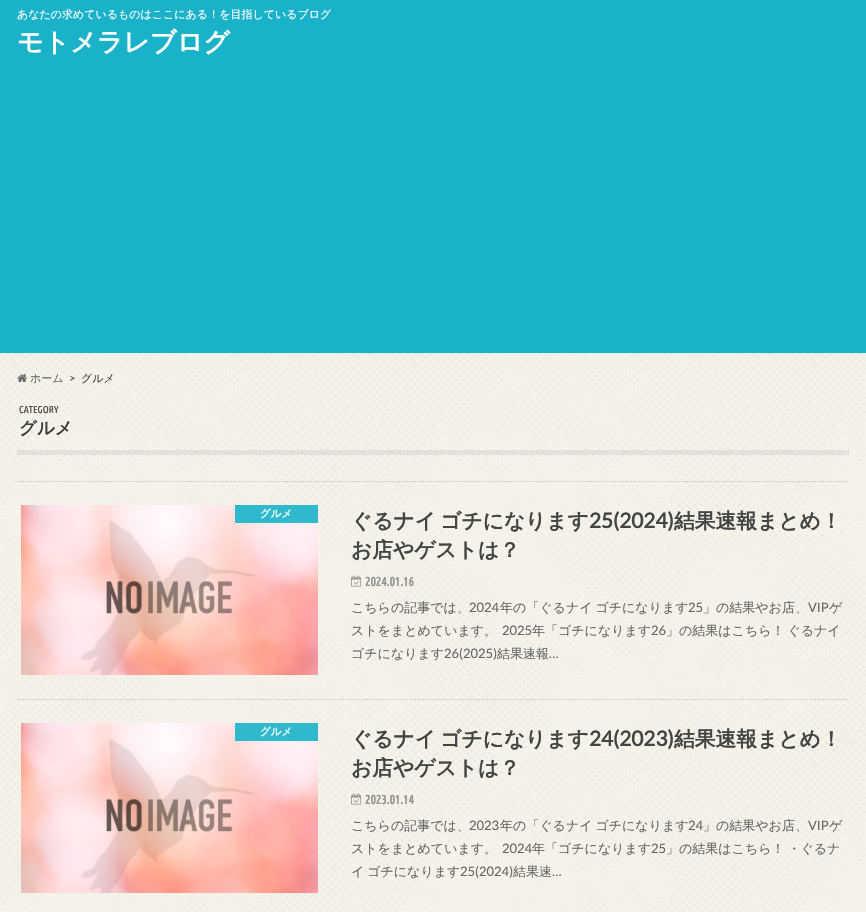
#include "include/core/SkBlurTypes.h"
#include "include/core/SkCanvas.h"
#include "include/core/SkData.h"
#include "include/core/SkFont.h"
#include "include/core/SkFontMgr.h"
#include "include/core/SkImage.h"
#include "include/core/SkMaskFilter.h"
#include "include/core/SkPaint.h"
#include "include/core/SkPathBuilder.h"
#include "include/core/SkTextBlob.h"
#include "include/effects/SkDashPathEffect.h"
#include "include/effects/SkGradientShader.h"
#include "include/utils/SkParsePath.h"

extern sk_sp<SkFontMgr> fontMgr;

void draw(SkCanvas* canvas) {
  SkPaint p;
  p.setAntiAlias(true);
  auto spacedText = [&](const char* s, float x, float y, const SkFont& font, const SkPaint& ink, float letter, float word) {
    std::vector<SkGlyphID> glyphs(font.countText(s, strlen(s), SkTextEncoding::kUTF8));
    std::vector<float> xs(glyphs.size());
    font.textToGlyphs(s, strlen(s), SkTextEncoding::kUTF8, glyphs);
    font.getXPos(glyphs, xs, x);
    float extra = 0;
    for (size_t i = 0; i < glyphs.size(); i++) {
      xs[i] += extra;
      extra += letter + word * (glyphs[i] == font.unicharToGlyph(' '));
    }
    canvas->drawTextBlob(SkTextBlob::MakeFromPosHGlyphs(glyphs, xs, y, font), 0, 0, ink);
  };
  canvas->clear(SK_ColorWHITE);
  canvas->drawImageRect(SkImages::DeferredFromEncodedData(SkData::MakeFromFileName("images/1.png")), SkRect::MakeLTRB(0, 353, 866, 912), SkSamplingOptions());
  p.setColor(SkColorSetRGB(26, 178, 201));
  canvas->drawRect(SkRect::MakeLTRB(0, 0, 866, 353), p);
  canvas->drawImageRect(SkImages::DeferredFromEncodedData(SkData::MakeFromFileName("images/2.png")), SkRect::MakeLTRB(17, 374, 27, 382), SkSamplingOptions());
  canvas->drawImageRect(SkImages::DeferredFromEncodedData(SkData::MakeFromFileName("images/3.png")), SkRect::MakeLTRB(17, 450, 849, 455), SkSamplingOptions());
  p.setStyle(SkPaint::kStroke_Style);
  p.setStrokeWidth(1);
  p.setColor(SkColorSetARGB(51, 0, 0, 0));
  p.setPathEffect(SkDashPathEffect::Make({{1, 1}}, 0));
  canvas->drawPath(SkPathBuilder().moveTo(17, 481.5f).lineTo(849, 481.5f).detach(), p);
  p.setPathEffect(nullptr);
  p.setPathEffect(SkDashPathEffect::Make({{1, 1}}, 0));
  canvas->drawPath(SkPathBuilder().moveTo(17, 699.5f).lineTo(849, 699.5f).detach(), p);
  p.setPathEffect(nullptr);
  canvas->drawImageRect(SkImages::DeferredFromEncodedData(SkData::MakeFromFileName("images/4.png")), SkRect::MakeLTRB(21, 505, 318, 675), SkSamplingOptions());
  p.setStyle(SkPaint::kFill_Style);
  p.setColor(SkColorSetARGB(230, 26, 178, 201));
  canvas->drawRect(SkRect::MakeLTRB(235, 505, 318, 523), p);
  canvas->drawImageRect(SkImages::DeferredFromEncodedData(SkData::MakeFromFileName("images/5.png")), SkRect::MakeLTRB(351, 575, 362, 587), SkSamplingOptions());
  canvas->drawImageRect(SkImages::DeferredFromEncodedData(SkData::MakeFromFileName("images/4.png")), SkRect::MakeLTRB(21, 723, 318, 893), SkSamplingOptions());
  canvas->drawRect(SkRect::MakeLTRB(235, 723, 318, 741), p);
  canvas->drawImageRect(SkImages::DeferredFromEncodedData(SkData::MakeFromFileName("images/6.png")), SkRect::MakeLTRB(351, 793, 362, 805), SkSamplingOptions());
  SkFont font1(fontMgr->matchFamilyStyle("WenQuanYi Zen Hei", SkFontStyle(500, SkFontStyle::kNormal_Width, SkFontStyle::kUpright_Slant)), 11);
  font1.setSubpixel(true);
  p.setColor(SK_ColorWHITE);
  canvas->drawString("あなたの求めているものはここにある！を目指しているブログ", 17, 18, font1, p);
  SkFont font2(fontMgr->matchFamilyStyle("WenQuanYi Zen Hei", SkFontStyle::Bold()), 26);
  font2.setSubpixel(true);
  canvas->drawString("モトメラレブログ", 17, 51, font2, p);
  p.setColor(SkColorSetRGB(102, 102, 102));
  canvas->drawString("ホーム", 30, 382, font1, p);
  SkFont font3(fontMgr->matchFamilyStyle("Lato", SkFontStyle::Normal()), 11);
  font3.setSubpixel(true);
  p.setColor(SkColorSetRGB(62, 62, 62));
  canvas->drawString(">", 69, 382, font3, p);
  canvas->drawString("グルメ", 81, 382, font1, p);
  SkFont font4(fontMgr->matchFamilyStyle("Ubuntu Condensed", SkFontStyle::Normal()), 10);
  font4.setSubpixel(true);
  canvas->drawString("CATEGORY", 19, 413, font4, p);
  SkFont font5(fontMgr->matchFamilyStyle("WenQuanYi Zen Hei", SkFontStyle::Bold()), 17.5f);
  font5.setSubpixel(true);
  canvas->drawString("グルメ", 19, 434, font5, p);
  SkFont font6(fontMgr->matchFamilyStyle("WenQuanYi Zen Hei", SkFontStyle::Bold()), 10.5f);
  font6.setSubpixel(true);
  p.setColor(SkColorSetRGB(234, 248, 250));
  canvas->drawString("グルメ", 260, 517, font6, p);
  SkFont font7(fontMgr->matchFamilyStyle("WenQuanYi Zen Hei", SkFontStyle::Bold()), 20.75f);
  font7.setSubpixel(true);
  p.setColor(SkColorSetRGB(68, 68, 68));
  spacedText("ぐるナイ ゴチになります", 351, 528, font7, p, 0, -2);
  SkFont font8(fontMgr->matchFamilyStyle("Lato", SkFontStyle::Bold()), 20.75f);
  font8.setSubpixel(true);
  canvas->drawString("25(2024)", 589, 528, font8, p);
  canvas->drawString("結果速報まとめ！", 674, 528, font7, p);
  canvas->drawString("お店やゲストは？", 351, 557, font7, p);
  SkFont font9(fontMgr->matchFamilyStyle("Ubuntu Condensed", SkFontStyle::Bold()), 12.5f);
  font9.setSubpixel(true);
  p.setColor(SkColorSetRGB(144, 144, 141));
  canvas->drawString("2024.01.16", 365, 586, font9, p);
  SkFont font10(fontMgr->matchFamilyStyle("WenQuanYi Zen Hei", SkFontStyle(500, SkFontStyle::kNormal_Width, SkFontStyle::kUpright_Slant)), 13);
  font10.setSubpixel(true);
  p.setColor(SkColorSetRGB(102, 102, 102));
  canvas->drawString("こちらの記事では、", 351, 612, font10, p);
  SkFont font11(fontMgr->matchFamilyStyle("Lato", SkFontStyle::Normal()), 13);
  font11.setSubpixel(true);
  canvas->drawString("2024", 469, 612, font11, p);
  spacedText("年の「ぐるナイ ゴチになります", 500, 612, font10, p, 0, -1);
  canvas->drawString("25", 688, 612, font11, p);
  canvas->drawString("」の結果やお店、", 703, 612, font10, p);
  canvas->drawString("VIP", 808, 612, font11, p);
  canvas->drawString("ゲ", 829, 612, font10, p);
  canvas->drawString("ストをまとめています。", 351, 635, font10, p);
  canvas->drawString("2025", 502, 635, font11, p);
  canvas->drawString("年「ゴチになります", 532, 635, font10, p);
  canvas->drawString("26", 651, 635, font11, p);
  spacedText("」の結果はこちら！ ぐるナイ", 666, 635, font10, p, 0, -1);
  canvas->drawString("ゴチになります", 351, 658, font10, p);
  canvas->drawString("26(2025)", 444, 658, font11, p);
  canvas->drawString("結果速報", 497, 658, font10, p);
  canvas->drawString("…", 549, 658, font11, p);
  p.setColor(SkColorSetRGB(234, 248, 250));
  canvas->drawString("グルメ", 260, 735, font6, p);
  p.setColor(SkColorSetRGB(68, 68, 68));
  spacedText("ぐるナイ ゴチになります", 351, 746, font7, p, 0, -2);
  canvas->drawString("24(2023)", 589, 746, font8, p);
  canvas->drawString("結果速報まとめ！", 674, 746, font7, p);
  canvas->drawString("お店やゲストは？", 351, 775, font7, p);
  p.setColor(SkColorSetRGB(144, 144, 141));
  canvas->drawString("2023.01.14", 365, 804, font9, p);
  p.setColor(SkColorSetRGB(102, 102, 102));
  canvas->drawString("こちらの記事では、", 351, 830, font10, p);
  canvas->drawString("2023", 469, 830, font11, p);
  spacedText("年の「ぐるナイ ゴチになります", 500, 830, font10, p, 0, -1);
  canvas->drawString("24", 688, 830, font11, p);
  canvas->drawString("」の結果やお店、", 703, 830, font10, p);
  canvas->drawString("VIP", 808, 830, font11, p);
  canvas->drawString("ゲ", 829, 830, font10, p);
  canvas->drawString("ストをまとめています。", 351, 853, font10, p);
  canvas->drawString("2024", 502, 853, font11, p);
  canvas->drawString("年「ゴチになります", 532, 853, font10, p);
  canvas->drawString("25", 651, 853, font11, p);
  spacedText("」の結果はこちら！ ・ぐるナ", 666, 853, font10, p, 0, -1);
  spacedText("イ ゴチになります", 351, 876, font10, p, 0, -1);
  canvas->drawString("25(2024)", 460, 876, font11, p);
  canvas->drawString("結果速", 513, 876, font10, p);
  canvas->drawString("…", 552, 876, font11, p);
}
